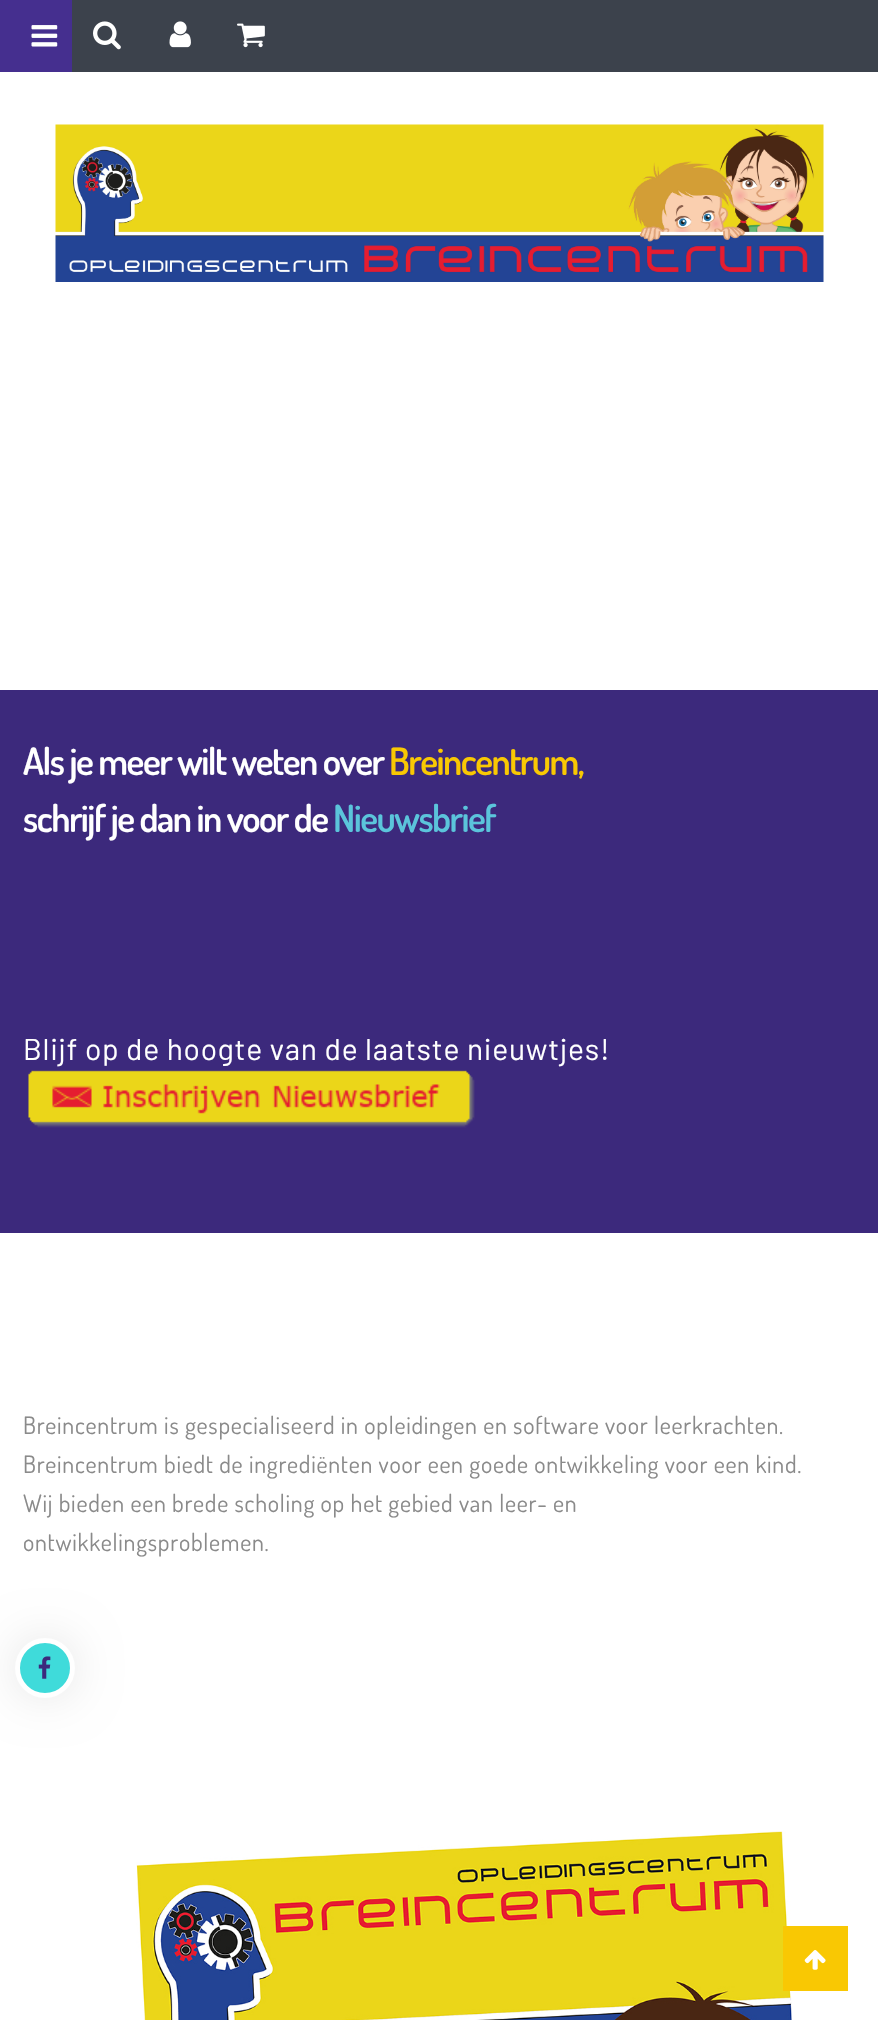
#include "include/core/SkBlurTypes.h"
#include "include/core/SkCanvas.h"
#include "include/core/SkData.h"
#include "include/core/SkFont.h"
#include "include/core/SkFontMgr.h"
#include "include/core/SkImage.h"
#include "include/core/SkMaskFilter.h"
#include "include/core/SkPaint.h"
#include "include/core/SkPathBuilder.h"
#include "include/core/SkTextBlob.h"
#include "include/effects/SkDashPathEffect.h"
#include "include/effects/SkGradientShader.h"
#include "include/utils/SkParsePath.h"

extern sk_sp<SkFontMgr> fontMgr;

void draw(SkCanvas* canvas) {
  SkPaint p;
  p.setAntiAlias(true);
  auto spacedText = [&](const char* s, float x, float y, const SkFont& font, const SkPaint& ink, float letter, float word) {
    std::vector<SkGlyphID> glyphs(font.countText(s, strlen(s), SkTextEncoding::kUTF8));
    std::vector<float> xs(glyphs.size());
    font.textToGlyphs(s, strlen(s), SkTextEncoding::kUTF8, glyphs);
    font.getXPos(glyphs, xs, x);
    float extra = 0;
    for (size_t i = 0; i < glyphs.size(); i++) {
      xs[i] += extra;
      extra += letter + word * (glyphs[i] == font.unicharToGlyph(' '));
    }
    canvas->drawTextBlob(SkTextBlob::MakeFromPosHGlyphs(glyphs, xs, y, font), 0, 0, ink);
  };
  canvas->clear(SK_ColorWHITE);
  p.setColor(SkColorSetRGB(60, 66, 76));
  canvas->drawRect(SkRect::MakeLTRB(72, 0, 878, 72), p);
  p.setColor(SkColorSetRGB(69, 47, 143));
  canvas->drawRect(SkRect::MakeLTRB(0, 0, 72, 72), p);
  canvas->drawImageRect(SkImages::DeferredFromEncodedData(SkData::MakeFromFileName("images/1.png")), SkRect::MakeLTRB(31, 25, 58, 47), SkSamplingOptions());
  canvas->drawImageRect(SkImages::DeferredFromEncodedData(SkData::MakeFromFileName("images/2.png")), SkRect::MakeLTRB(93, 21, 121, 50), SkSamplingOptions());
  canvas->drawImageRect(SkImages::DeferredFromEncodedData(SkData::MakeFromFileName("images/3.png")), SkRect::MakeLTRB(169, 21, 191, 48), SkSamplingOptions());
  canvas->drawImageRect(SkImages::DeferredFromEncodedData(SkData::MakeFromFileName("images/4.png")), SkRect::MakeLTRB(237, 23, 265, 48), SkSamplingOptions());
  canvas->drawImageRect(SkImages::DeferredFromEncodedData(SkData::MakeFromFileName("images/5.png")), SkRect::MakeLTRB(55, 124, 824, 282), SkSamplingOptions());
  p.setColor(SkColorSetRGB(60, 41, 124));
  canvas->drawRect(SkRect::MakeLTRB(0, 690, 878, 1233), p);
  canvas->drawImageRect(SkImages::DeferredFromEncodedData(SkData::MakeFromFileName("images/6.png")), SkRect::MakeLTRB(28, 1070, 475, 1128), SkSamplingOptions());
  p.setColor(SkColorSetARGB(26, 0, 0, 0));
  p.setMaskFilter(SkMaskFilter::MakeBlur(kNormal_SkBlurStyle, 22.5f));
  canvas->drawRoundRect(SkRect::MakeLTRB(15, 1638, 75, 1698), 30, 30, p);
  p.setMaskFilter(nullptr);
  p.setColor(SkColorSetRGB(63, 219, 218));
  canvas->drawCircle(45, 1668, 27.5f, p);
  p.setStyle(SkPaint::kStroke_Style);
  p.setStrokeWidth(5);
  p.setColor(SK_ColorWHITE);
  canvas->drawCircle(45, 1668, 27.5f, p);
  canvas->drawImageRect(SkImages::DeferredFromEncodedData(SkData::MakeFromFileName("images/7.png")), SkRect::MakeLTRB(38, 1656, 51, 1679), SkSamplingOptions());
  canvas->drawImageRect(SkImages::DeferredFromEncodedData(SkData::MakeFromFileName("images/8.png")), SkRect::MakeLTRB(136, 1831, 792, 2020), SkSamplingOptions());
  p.setStyle(SkPaint::kFill_Style);
  p.setColor(SkColorSetRGB(249, 200, 3));
  canvas->drawRect(SkRect::MakeLTRB(783, 1926, 848, 1991), p);
  canvas->drawImageRect(SkImages::DeferredFromEncodedData(SkData::MakeFromFileName("images/9.png")), SkRect::MakeLTRB(804, 1950, 826, 1970), SkSamplingOptions());
  SkFont font1(fontMgr->matchFamilyStyle("Dosis", SkFontStyle(600, SkFontStyle::kNormal_Width, SkFontStyle::kUpright_Slant)), 37.5f);
  font1.setSubpixel(true);
  p.setColor(SK_ColorWHITE);
  spacedText("Als je meer wilt weten over", 23, 775, font1, p, -1.5f, 0);
  p.setColor(SkColorSetRGB(249, 200, 3));
  spacedText("Breincentrum,", 389, 775, font1, p, -1.5f, 0);
  p.setColor(SK_ColorWHITE);
  spacedText("schrijf je dan in voor de", 23, 832, font1, p, -1.5f, 0);
  p.setColor(SkColorSetRGB(91, 196, 219));
  spacedText("Nieuwsbrief", 333, 832, font1, p, -1.5f, 0);
  SkFont font2(fontMgr->matchFamilyStyle("Barlow", SkFontStyle::Normal()), 30);
  font2.setSubpixel(true);
  p.setColor(SK_ColorWHITE);
  spacedText("Blijf op de hoogte van de laatste nieuwtjes!", 23, 1060, font2, p, 0.75f, 0);
  SkFont font3(fontMgr->matchFamilyStyle("Dosis", SkFontStyle::Normal()), 24);
  font3.setSubpixel(true);
  p.setColor(SkColorSetRGB(138, 138, 138));
  spacedText("Breincentrum is gespecialiseerd in opleidingen en software voor leerkrachten.", 23, 1434, font3, p, 0.75f, 0);
  spacedText("Breincentrum biedt de ingrediënten voor een goede ontwikkeling voor een kind.", 23, 1473, font3, p, 0.75f, 0);
  spacedText("Wij bieden een brede scholing op het gebied van leer- en", 23, 1512, font3, p, 0.75f, 0);
  spacedText("ontwikkelingsproblemen.", 23, 1551, font3, p, 0.75f, 0);
}
